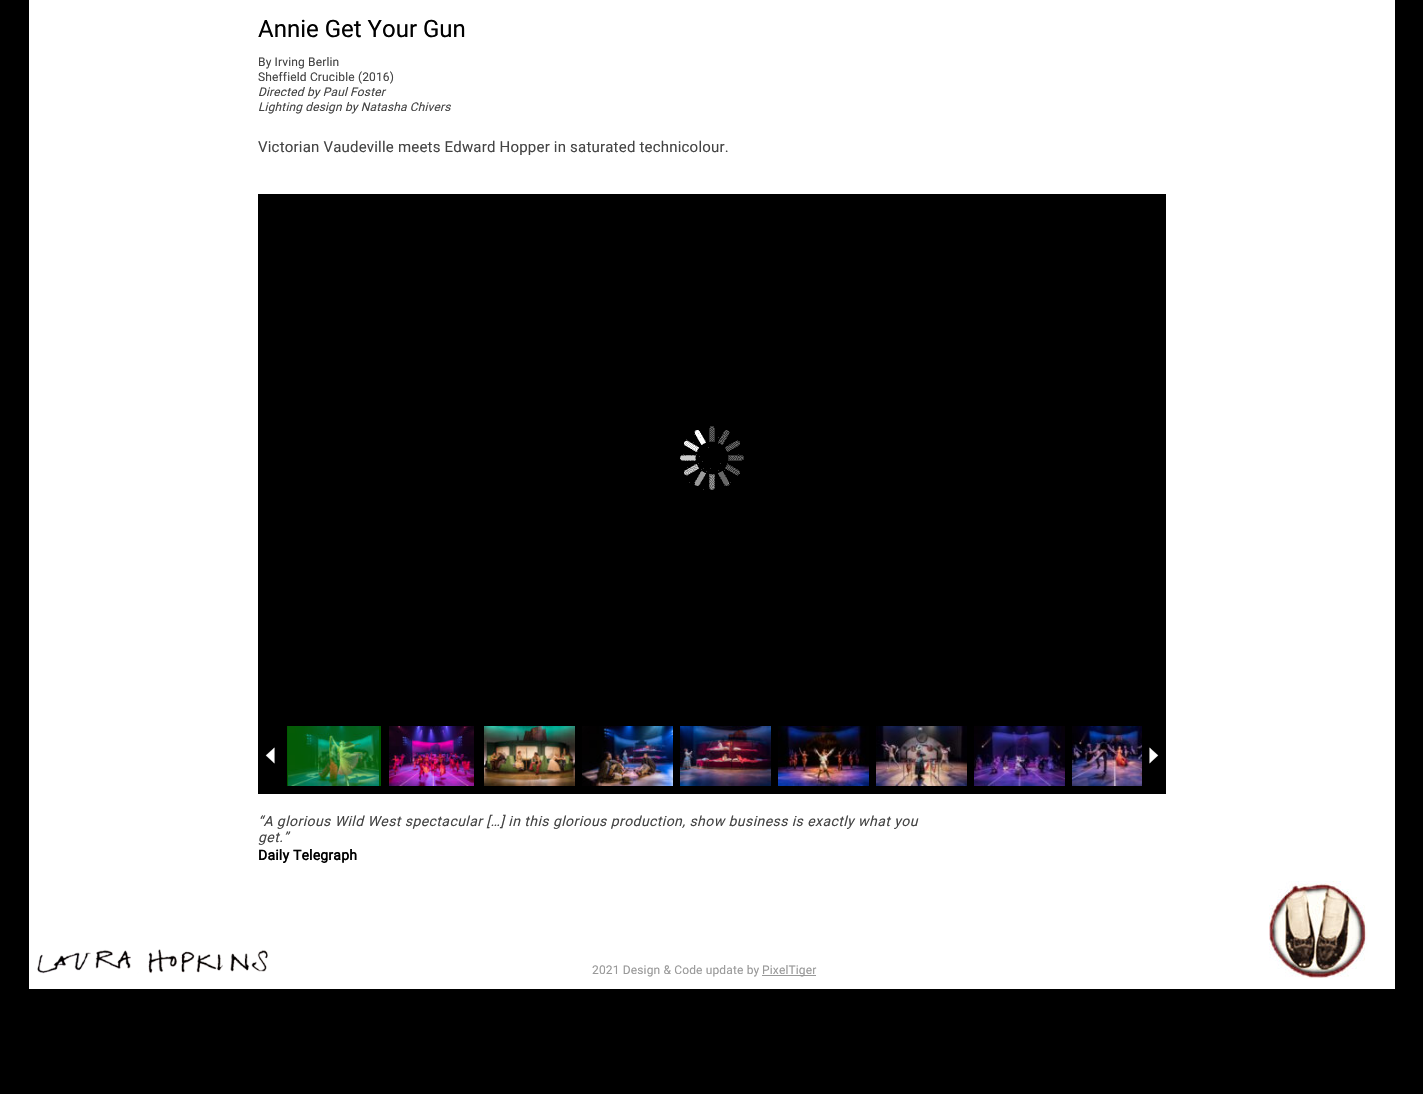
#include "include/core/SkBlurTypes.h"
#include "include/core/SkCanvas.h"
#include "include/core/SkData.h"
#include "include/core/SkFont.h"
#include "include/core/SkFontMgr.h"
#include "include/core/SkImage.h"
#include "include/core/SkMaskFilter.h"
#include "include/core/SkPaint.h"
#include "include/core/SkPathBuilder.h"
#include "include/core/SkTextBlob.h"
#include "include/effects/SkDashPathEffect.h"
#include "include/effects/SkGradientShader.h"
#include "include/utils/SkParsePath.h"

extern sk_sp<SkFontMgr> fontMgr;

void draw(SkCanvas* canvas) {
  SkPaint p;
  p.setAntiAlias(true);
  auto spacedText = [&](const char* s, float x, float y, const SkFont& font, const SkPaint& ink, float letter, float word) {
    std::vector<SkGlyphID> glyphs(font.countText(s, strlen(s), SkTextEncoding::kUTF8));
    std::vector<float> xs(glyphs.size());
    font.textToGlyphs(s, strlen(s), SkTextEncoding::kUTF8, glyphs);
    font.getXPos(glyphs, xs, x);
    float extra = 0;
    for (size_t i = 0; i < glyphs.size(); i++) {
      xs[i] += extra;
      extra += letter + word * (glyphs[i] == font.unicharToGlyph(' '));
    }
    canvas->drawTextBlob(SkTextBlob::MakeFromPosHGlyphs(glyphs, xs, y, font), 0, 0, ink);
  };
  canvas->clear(SK_ColorBLACK);
  p.setColor(SK_ColorWHITE);
  canvas->drawRect(SkRect::MakeLTRB(29, 0, 1395, 989), p);
  p.setColor(SK_ColorBLACK);
  canvas->drawRect(SkRect::MakeLTRB(258, 194, 1166, 718), p);
  canvas->drawImageRect(SkImages::DeferredFromEncodedData(SkData::MakeFromFileName("images/1.png")), SkRect::MakeLTRB(680, 426, 744, 490), SkSamplingOptions());
  canvas->drawRect(SkRect::MakeLTRB(258, 718, 1166, 794), p);
  p.setColor(SkColorSetRGB(0, 89, 0));
  canvas->drawRect(SkRect::MakeLTRB(287, 726, 381, 786), p);
  canvas->drawImageRect(SkImages::DeferredFromEncodedData(SkData::MakeFromFileName("images/2.png")), SkRect::MakeLTRB(288, 726, 379, 786), SkSamplingOptions());
  canvas->drawImageRect(SkImages::DeferredFromEncodedData(SkData::MakeFromFileName("images/3.png")), SkRect::MakeLTRB(389, 726, 474, 786), SkSamplingOptions());
  canvas->drawImageRect(SkImages::DeferredFromEncodedData(SkData::MakeFromFileName("images/4.png")), SkRect::MakeLTRB(484, 726, 575, 786), SkSamplingOptions());
  canvas->drawImageRect(SkImages::DeferredFromEncodedData(SkData::MakeFromFileName("images/5.png")), SkRect::MakeLTRB(582, 726, 673, 786), SkSamplingOptions());
  canvas->drawImageRect(SkImages::DeferredFromEncodedData(SkData::MakeFromFileName("images/6.png")), SkRect::MakeLTRB(680, 726, 771, 786), SkSamplingOptions());
  canvas->drawImageRect(SkImages::DeferredFromEncodedData(SkData::MakeFromFileName("images/7.png")), SkRect::MakeLTRB(778, 726, 869, 786), SkSamplingOptions());
  canvas->drawImageRect(SkImages::DeferredFromEncodedData(SkData::MakeFromFileName("images/8.png")), SkRect::MakeLTRB(876, 726, 967, 786), SkSamplingOptions());
  canvas->drawImageRect(SkImages::DeferredFromEncodedData(SkData::MakeFromFileName("images/9.png")), SkRect::MakeLTRB(974, 726, 1065, 786), SkSamplingOptions());
  canvas->drawImageRect(SkImages::DeferredFromEncodedData(SkData::MakeFromFileName("images/10.png")), SkRect::MakeLTRB(1072, 726, 1142, 786), SkSamplingOptions());
  canvas->drawImageRect(SkImages::DeferredFromEncodedData(SkData::MakeFromFileName("images/11.png")), SkRect::MakeLTRB(265, 747, 275, 764), SkSamplingOptions());
  canvas->drawImageRect(SkImages::DeferredFromEncodedData(SkData::MakeFromFileName("images/12.png")), SkRect::MakeLTRB(1149, 747, 1159, 764), SkSamplingOptions());
  canvas->drawImageRect(SkImages::DeferredFromEncodedData(SkData::MakeFromFileName("images/13.png")), SkRect::MakeLTRB(37, 949, 268, 974), SkSamplingOptions());
  p.setColor(SkColorSetRGB(153, 153, 153));
  canvas->drawRect(SkRect::MakeLTRB(762, 975, 816, 976), p);
  canvas->drawImageRect(SkImages::DeferredFromEncodedData(SkData::MakeFromFileName("images/14.png")), SkRect::MakeLTRB(1269, 881, 1368, 979), SkSamplingOptions());
  SkFont font1(fontMgr->matchFamilyStyle("Roboto", SkFontStyle::Normal()), 24);
  font1.setSubpixel(true);
  p.setColor(SK_ColorBLACK);
  canvas->drawString("Annie Get Your Gun", 258, 37, font1, p);
  SkFont font2(fontMgr->matchFamilyStyle("Roboto", SkFontStyle::Normal()), 12);
  font2.setSubpixel(true);
  p.setColor(SkColorSetRGB(68, 68, 68));
  spacedText("By Irving Berlin", 258, 66, font2, p, 0.15f, 0);
  spacedText("Sheffield Crucible (2016)", 258, 81, font2, p, 0.15f, 0);
  SkFont font3(fontMgr->matchFamilyStyle("Roboto", SkFontStyle::Italic()), 12);
  font3.setSubpixel(true);
  spacedText("Directed by Paul Foster", 258, 96, font3, p, 0.15f, 0);
  spacedText("Lighting design by Natasha Chivers", 258, 111, font3, p, 0.15f, 0);
  SkFont font4(fontMgr->matchFamilyStyle("Roboto", SkFontStyle::Normal()), 15);
  font4.setSubpixel(true);
  spacedText("Victorian Vaudeville meets Edward Hopper in saturated technicolour.", 258, 152, font4, p, 0.2f, 0);
  SkFont font5(fontMgr->matchFamilyStyle("Roboto", SkFontStyle::Italic()), 14);
  font5.setSubpixel(true);
  spacedText("“A glorious Wild West spectacular […] in this glorious production, show business is exactly what you", 258, 826, font5, p, 0.44f, 0);
  spacedText("get.”", 258, 842, font5, p, 0.44f, 0);
  SkFont font6(fontMgr->matchFamilyStyle("Roboto", SkFontStyle::Bold()), 14);
  font6.setSubpixel(true);
  p.setColor(SK_ColorBLACK);
  spacedText("Daily Telegraph", 258, 860, font6, p, 0.2f, 0);
  p.setColor(SkColorSetRGB(153, 153, 153));
  spacedText("2021 Design & Code update by", 592, 974, font2, p, 0.15f, 0);
  spacedText("PixelTiger", 762, 974, font2, p, 0.15f, 0);
}
